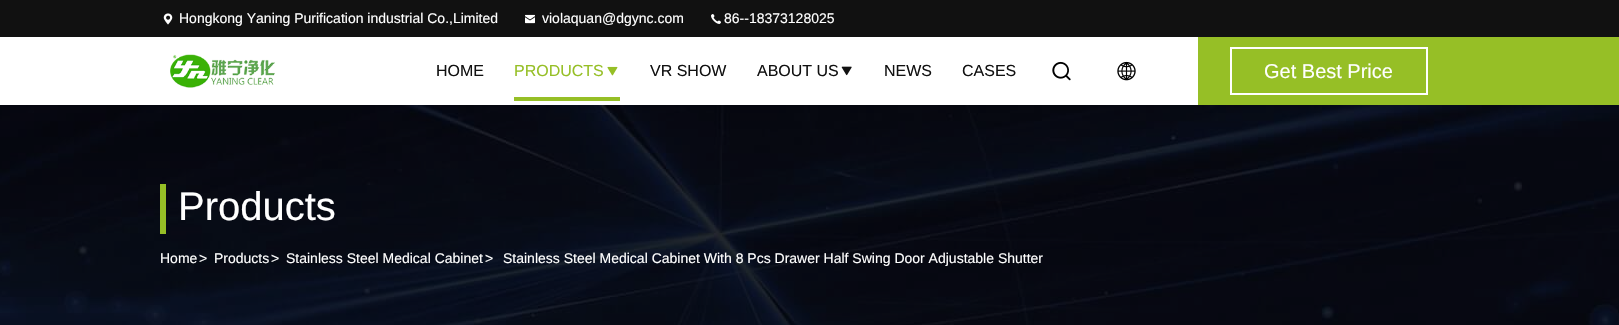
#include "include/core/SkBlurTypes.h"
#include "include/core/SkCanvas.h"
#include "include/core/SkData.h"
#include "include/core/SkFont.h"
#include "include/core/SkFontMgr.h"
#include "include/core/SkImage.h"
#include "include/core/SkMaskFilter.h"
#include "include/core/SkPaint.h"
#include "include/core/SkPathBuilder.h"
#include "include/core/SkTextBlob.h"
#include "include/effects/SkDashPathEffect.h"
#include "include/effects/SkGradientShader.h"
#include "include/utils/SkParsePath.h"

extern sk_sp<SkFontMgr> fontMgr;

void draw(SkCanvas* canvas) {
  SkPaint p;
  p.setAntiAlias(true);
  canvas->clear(SK_ColorWHITE);
  canvas->drawImageRect(SkImages::DeferredFromEncodedData(SkData::MakeFromFileName("images/9.png")), SkRect::MakeLTRB(0, 105, 1619, 325), SkSamplingOptions());
  p.setColor(SkColorSetARGB(38, 0, 0, 0));
  p.setMaskFilter(SkMaskFilter::MakeBlur(kNormal_SkBlurStyle, 3));
  canvas->drawRect(SkRect::MakeLTRB(0, 2, 1619, 107), p);
  p.setMaskFilter(nullptr);
  p.setColor(SkColorSetRGB(17, 17, 17));
  canvas->drawRect(SkRect::MakeLTRB(0, 0, 1619, 37), p);
  canvas->drawImageRect(SkImages::DeferredFromEncodedData(SkData::MakeFromFileName("images/1.png")), SkRect::MakeLTRB(163, 13, 173, 25), SkSamplingOptions());
  canvas->drawImageRect(SkImages::DeferredFromEncodedData(SkData::MakeFromFileName("images/2.png")), SkRect::MakeLTRB(525, 14, 535, 24), SkSamplingOptions());
  canvas->drawImageRect(SkImages::DeferredFromEncodedData(SkData::MakeFromFileName("images/3.png")), SkRect::MakeLTRB(711, 14, 721, 24), SkSamplingOptions());
  p.setColor(SK_ColorWHITE);
  canvas->drawRect(SkRect::MakeLTRB(0, 37, 1198, 105), p);
  canvas->drawImageRect(SkImages::DeferredFromEncodedData(SkData::MakeFromFileName("images/4.png")), SkRect::MakeLTRB(170, 54, 275, 88), SkSamplingOptions());
  p.setColor(SkColorSetRGB(150, 191, 38));
  canvas->drawRect(SkRect::MakeLTRB(1198, 37, 1619, 105), p);
  canvas->drawImageRect(SkImages::DeferredFromEncodedData(SkData::MakeFromFileName("images/5.png")), SkRect::MakeLTRB(607, 66, 618, 76), SkSamplingOptions());
  canvas->drawRect(SkRect::MakeLTRB(514, 97, 620, 101), p);
  canvas->drawImageRect(SkImages::DeferredFromEncodedData(SkData::MakeFromFileName("images/6.png")), SkRect::MakeLTRB(841, 66, 852, 76), SkSamplingOptions());
  canvas->drawImageRect(SkImages::DeferredFromEncodedData(SkData::MakeFromFileName("images/7.png")), SkRect::MakeLTRB(1052, 61, 1071, 81), SkSamplingOptions());
  canvas->drawImageRect(SkImages::DeferredFromEncodedData(SkData::MakeFromFileName("images/8.png")), SkRect::MakeLTRB(1117, 61, 1136, 81), SkSamplingOptions());
  p.setStyle(SkPaint::kStroke_Style);
  p.setStrokeWidth(2);
  p.setColor(SK_ColorWHITE);
  canvas->drawRect(SkRect::MakeLTRB(1231, 48, 1427, 94), p);
  p.setStyle(SkPaint::kFill_Style);
  p.setColor(SkColorSetRGB(150, 191, 38));
  canvas->drawRect(SkRect::MakeLTRB(160, 184, 166, 234), p);
  SkFont font1(fontMgr->matchFamilyStyle("Liberation Sans", SkFontStyle::Normal()), 14);
  font1.setSubpixel(true);
  p.setColor(SK_ColorWHITE);
  canvas->drawString("Hongkong Yaning Purification industrial Co.,Limited", 179, 23, font1, p);
  canvas->drawString("violaquan@dgync.com", 542, 23, font1, p);
  canvas->drawString("86--18373128025", 724, 23, font1, p);
  SkFont font2(fontMgr->matchFamilyStyle("Liberation Sans", SkFontStyle::Normal()), 16);
  font2.setSubpixel(true);
  p.setColor(SkColorSetRGB(17, 17, 17));
  canvas->drawString("HOME", 436, 76, font2, p);
  p.setColor(SkColorSetRGB(150, 191, 38));
  canvas->drawString("PRODUCTS", 514, 76, font2, p);
  p.setColor(SkColorSetRGB(17, 17, 17));
  canvas->drawString("VR SHOW", 650, 76, font2, p);
  canvas->drawString("ABOUT US", 757, 76, font2, p);
  canvas->drawString("NEWS", 884, 76, font2, p);
  canvas->drawString("CASES", 962, 76, font2, p);
  SkFont font3(fontMgr->matchFamilyStyle("Liberation Sans", SkFontStyle::Normal()), 20);
  font3.setSubpixel(true);
  p.setColor(SK_ColorWHITE);
  canvas->drawString("Get Best Price", 1264, 78, font3, p);
  SkFont font4(fontMgr->matchFamilyStyle("Liberation Sans", SkFontStyle::Normal()), 40);
  font4.setSubpixel(true);
  canvas->drawString("Products", 178, 220, font4, p);
  canvas->drawString("Home", 160, 263, font1, p);
  canvas->drawString(">", 199, 263, font1, p);
  canvas->drawString("Products", 214, 263, font1, p);
  canvas->drawString(">", 271, 263, font1, p);
  canvas->drawString("Stainless Steel Medical Cabinet", 286, 263, font1, p);
  canvas->drawString(">", 485, 263, font1, p);
  canvas->drawString("Stainless Steel Medical Cabinet With 8 Pcs Drawer Half Swing Door Adjustable Shutter", 503, 263, font1, p);
}
